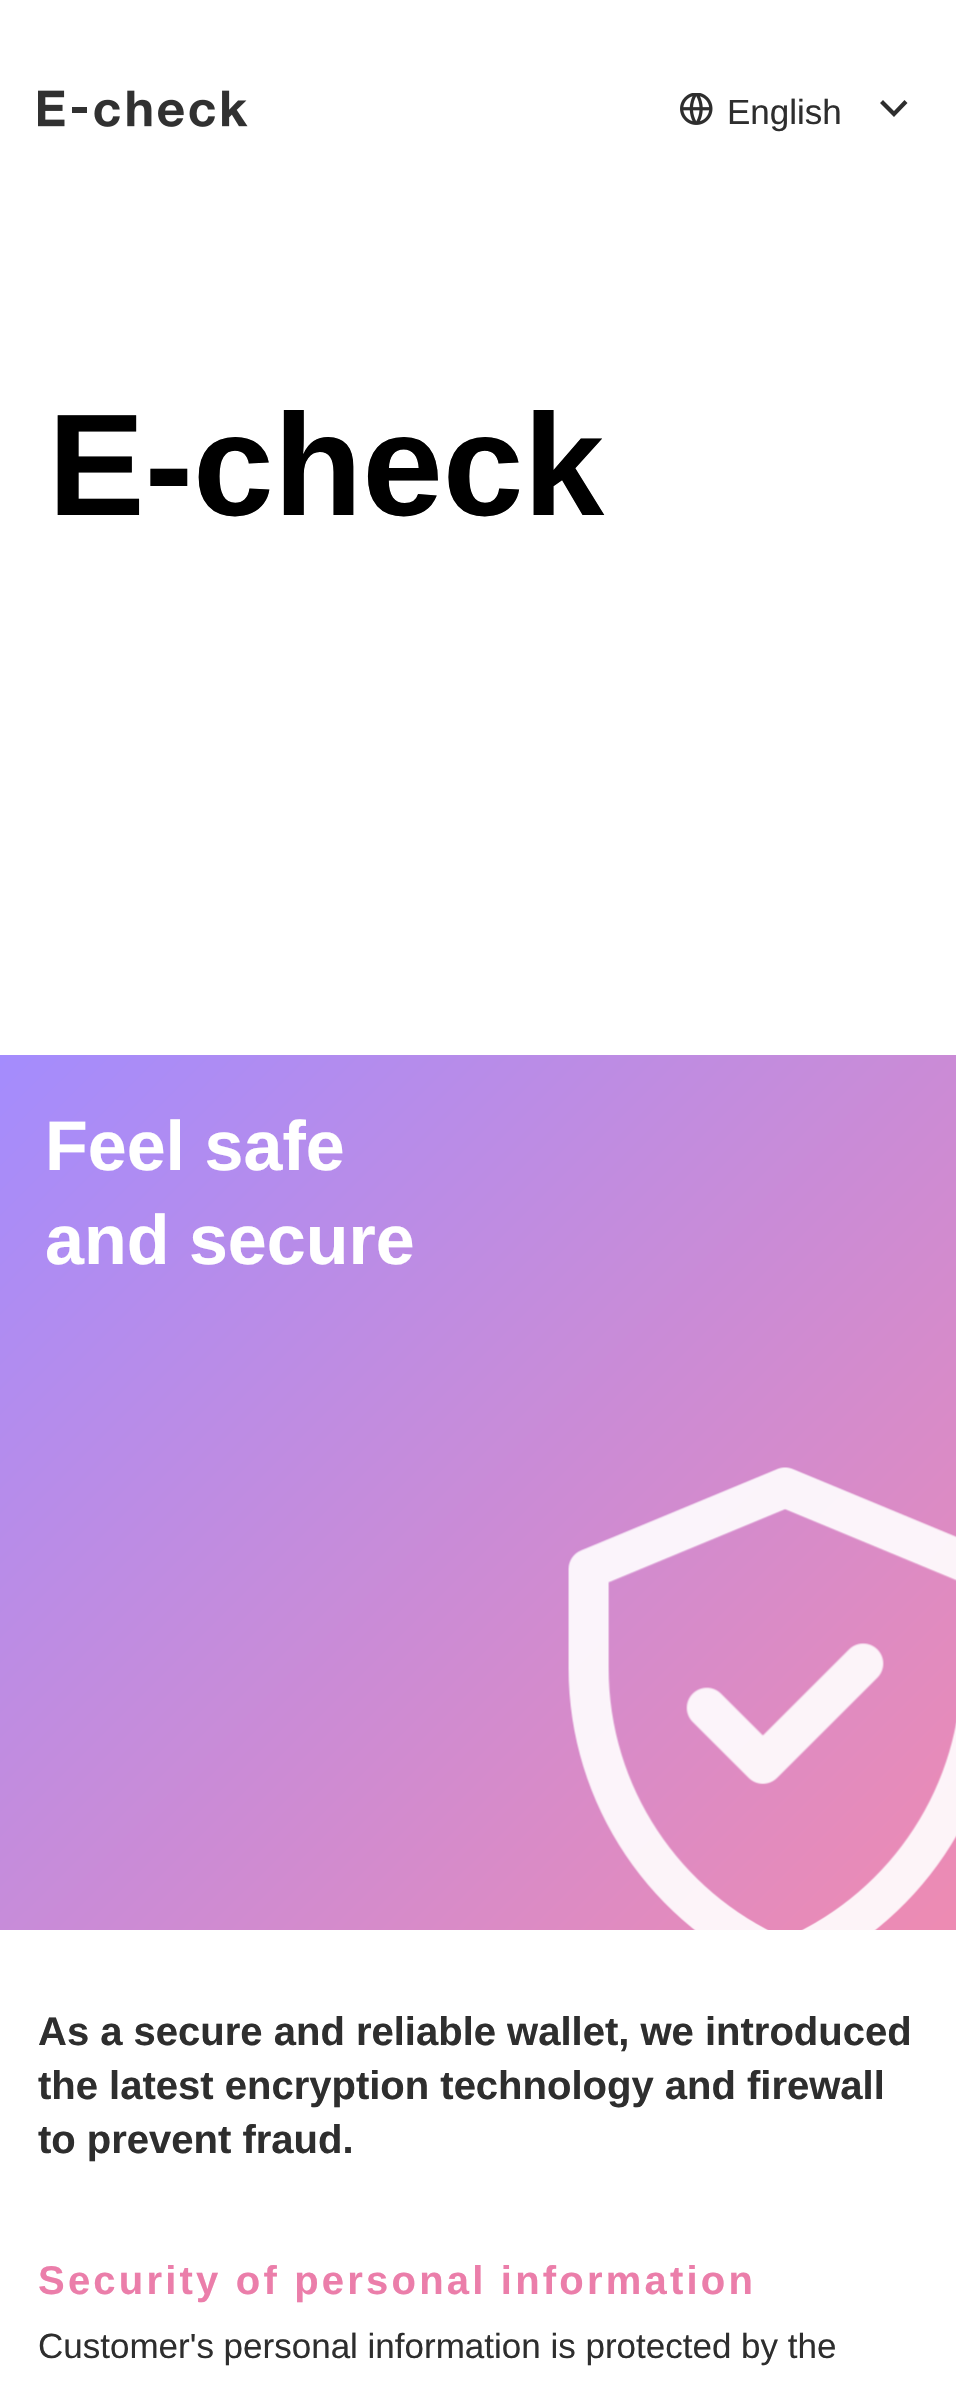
#include "include/core/SkBlurTypes.h"
#include "include/core/SkCanvas.h"
#include "include/core/SkData.h"
#include "include/core/SkFont.h"
#include "include/core/SkFontMgr.h"
#include "include/core/SkImage.h"
#include "include/core/SkMaskFilter.h"
#include "include/core/SkPaint.h"
#include "include/core/SkPathBuilder.h"
#include "include/core/SkTextBlob.h"
#include "include/effects/SkDashPathEffect.h"
#include "include/effects/SkGradientShader.h"
#include "include/utils/SkParsePath.h"

extern sk_sp<SkFontMgr> fontMgr;

void draw(SkCanvas* canvas) {
  SkPaint p;
  p.setAntiAlias(true);
  auto spacedText = [&](const char* s, float x, float y, const SkFont& font, const SkPaint& ink, float letter, float word) {
    std::vector<SkGlyphID> glyphs(font.countText(s, strlen(s), SkTextEncoding::kUTF8));
    std::vector<float> xs(glyphs.size());
    font.textToGlyphs(s, strlen(s), SkTextEncoding::kUTF8, glyphs);
    font.getXPos(glyphs, xs, x);
    float extra = 0;
    for (size_t i = 0; i < glyphs.size(); i++) {
      xs[i] += extra;
      extra += letter + word * (glyphs[i] == font.unicharToGlyph(' '));
    }
    canvas->drawTextBlob(SkTextBlob::MakeFromPosHGlyphs(glyphs, xs, y, font), 0, 0, ink);
  };
  canvas->clear(SK_ColorWHITE);
  canvas->drawImageRect(SkImages::DeferredFromEncodedData(SkData::MakeFromFileName("images/1.png")), SkRect::MakeLTRB(38, 90, 248, 127), SkSamplingOptions());
  canvas->drawImageRect(SkImages::DeferredFromEncodedData(SkData::MakeFromFileName("images/2.png")), SkRect::MakeLTRB(680, 93, 713, 125), SkSamplingOptions());
  p.setColor(SkColorSetRGB(46, 46, 46));
  canvas->drawPath(SkPathBuilder().moveTo(894, 111).lineTo(904.5f, 100).lineTo(907.5f, 103).lineTo(894, 117).lineTo(880, 103).lineTo(883, 100).close().detach(), p);
  {
    const SkColor colors[] = {SkColorSetRGB(237, 139, 179), SkColorSetRGB(164, 140, 253)};
    const float stops[] = {0.01f, 1};
    const SkPoint ends[] = {{937, 1951}, {21, 1034}};
    p.setShader(SkGradientShader::MakeLinear(ends, colors, stops, 2, SkTileMode::kClamp));
    p.setAlpha(255);
  }
  canvas->drawRect(SkRect::MakeLTRB(0, 1055, 956, 1930), p);
  canvas->drawImageRect(SkImages::DeferredFromEncodedData(SkData::MakeFromFileName("images/3.png")), SkRect::MakeLTRB(568, 1467, 956, 1930), SkSamplingOptions());
  SkFont font1(fontMgr->matchFamilyStyle("Liberation Sans", SkFontStyle::Normal()), 35);
  font1.setSubpixel(true);
  p.setShader(nullptr);
  p.setColor(SkColorSetRGB(46, 46, 46));
  canvas->drawString("English", 727, 124, font1, p);
  SkFont font2(fontMgr->matchFamilyStyle("Liberation Sans", SkFontStyle::Bold()), 145);
  font2.setSubpixel(true);
  p.setColor(SK_ColorBLACK);
  canvas->drawString("E-check", 48, 515, font2, p);
  SkFont font3(fontMgr->matchFamilyStyle("Liberation Sans", SkFontStyle::Bold()), 70);
  font3.setSubpixel(true);
  p.setColor(SK_ColorWHITE);
  canvas->drawString("Feel safe", 45, 1170, font3, p);
  canvas->drawString("and secure", 45, 1264, font3, p);
  SkFont font4(fontMgr->matchFamilyStyle("Liberation Sans", SkFontStyle::Bold()), 40);
  font4.setSubpixel(true);
  p.setColor(SkColorSetRGB(46, 46, 46));
  canvas->drawString("As a secure and reliable wallet, we introduced", 38, 2045, font4, p);
  canvas->drawString("the latest encryption technology and firewall", 38, 2099, font4, p);
  canvas->drawString("to prevent fraud.", 38, 2153, font4, p);
  p.setColor(SkColorSetRGB(235, 126, 170));
  spacedText("Security of personal information", 38, 2294, font4, p, 3.2f, 0);
  p.setColor(SkColorSetRGB(46, 46, 46));
  canvas->drawString("Customer's personal information is protected by the", 38, 2358, font1, p);
}
